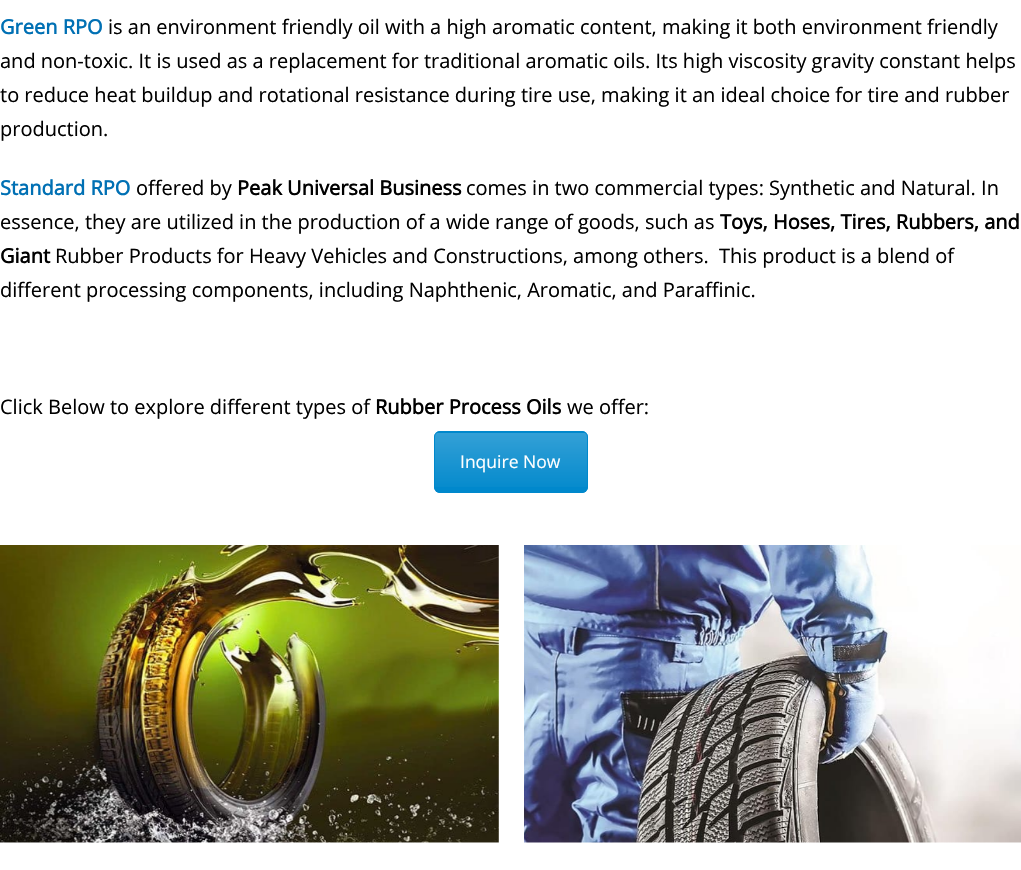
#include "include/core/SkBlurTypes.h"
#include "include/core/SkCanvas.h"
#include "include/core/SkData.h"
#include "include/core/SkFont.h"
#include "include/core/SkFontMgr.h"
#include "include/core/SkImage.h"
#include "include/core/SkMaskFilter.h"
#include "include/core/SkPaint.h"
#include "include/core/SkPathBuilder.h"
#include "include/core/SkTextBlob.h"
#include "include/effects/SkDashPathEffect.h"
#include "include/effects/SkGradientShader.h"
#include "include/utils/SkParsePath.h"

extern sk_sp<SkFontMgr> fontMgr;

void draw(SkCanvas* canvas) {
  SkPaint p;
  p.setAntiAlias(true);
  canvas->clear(SK_ColorWHITE);
  p.setColor(SkColorSetRGB(0, 136, 204));
  canvas->drawRoundRect(SkRect::MakeLTRB(434, 431, 588, 493), 6, 6, p);
  canvas->save();
  canvas->clipPath(SkPathBuilder().moveTo(440, 431).lineTo(582, 431).cubicTo(585.5f, 431, 588, 433.5f, 588, 437).lineTo(588, 487).cubicTo(588, 490.5f, 585.5f, 493, 582, 493).lineTo(440, 493).cubicTo(436.5f, 493, 434, 490.5f, 434, 487).lineTo(434, 437).cubicTo(434, 433.5f, 436.5f, 431, 440, 431).close().detach(), true);
  {
    const SkColor colors[] = {SkColorSetARGB(51, 255, 255, 255), SkColorSetARGB(3, 255, 255, 255)};
    const float stops[] = {0, 1};
    const SkPoint ends[] = {{511, 433}, {511, 491}};
    p.setShader(SkGradientShader::MakeLinear(ends, colors, stops, 2, SkTileMode::kClamp));
    p.setAlpha(255);
  }
  canvas->drawRect(SkRect::MakeLTRB(434, 433, 588, 487), p);
  canvas->restore();
  p.setStyle(SkPaint::kStroke_Style);
  p.setStrokeWidth(1);
  p.setShader(nullptr);
  p.setColor(SkColorSetRGB(0, 136, 204));
  canvas->drawRoundRect(SkRect::MakeLTRB(434.5f, 431.5f, 587.5f, 492.5f), 5.5f, 5.5f, p);
  canvas->drawImageRect(SkImages::DeferredFromEncodedData(SkData::MakeFromFileName("images/1.png")), SkRect::MakeLTRB(0, 545, 499, 843), SkSamplingOptions());
  canvas->drawImageRect(SkImages::DeferredFromEncodedData(SkData::MakeFromFileName("images/2.png")), SkRect::MakeLTRB(524, 545, 1021, 843), SkSamplingOptions());
  SkFont font1(fontMgr->matchFamilyStyle("Open Sans", SkFontStyle::Bold()), 20);
  font1.setSubpixel(true);
  p.setStyle(SkPaint::kFill_Style);
  p.setColor(SkColorSetRGB(0, 112, 180));
  canvas->drawString("Green RPO", 0, 34, font1, p);
  SkFont font2(fontMgr->matchFamilyStyle("Open Sans", SkFontStyle::Normal()), 20);
  font2.setSubpixel(true);
  p.setColor(SK_ColorBLACK);
  canvas->drawString("is an environment friendly oil with a high aromatic content, making it both environment friendly", 108, 34, font2, p);
  canvas->drawString("and non-toxic. It is used as a replacement for traditional aromatic oils. Its high viscosity gravity constant helps", 0, 68, font2, p);
  canvas->drawString("to reduce heat buildup and rotational resistance during tire use, making it an ideal choice for tire and rubber", 0, 102, font2, p);
  canvas->drawString("production.", 0, 136, font2, p);
  p.setColor(SkColorSetRGB(0, 112, 180));
  canvas->drawString("Standard RPO", 0, 195, font1, p);
  p.setColor(SK_ColorBLACK);
  canvas->drawString("offered by", 136, 195, font2, p);
  canvas->drawString("Peak Universal Business", 237, 195, font1, p);
  canvas->drawString("comes in two commercial types: Synthetic and Natural. In", 466, 195, font2, p);
  canvas->drawString("essence, they are utilized in the production of a wide range of goods, such as", 0, 229, font2, p);
  canvas->drawString("Toys, Hoses, Tires, Rubbers, and", 720, 229, font1, p);
  canvas->drawString("Giant", 0, 263, font1, p);
  canvas->drawString("Rubber Products for Heavy Vehicles and Constructions, among others.  This product is a blend of", 55, 263, font2, p);
  canvas->drawString("different processing components, including Naphthenic, Aromatic, and Paraffinic.", 0, 297, font2, p);
  canvas->drawString("Click Below to explore different types of", 0, 414, font2, p);
  canvas->drawString("Rubber Process Oils", 375, 414, font1, p);
  canvas->drawString("we offer:", 567, 414, font2, p);
  SkFont font3(fontMgr->matchFamilyStyle("Open Sans", SkFontStyle::Normal()), 17.5f);
  font3.setSubpixel(true);
  p.setColor(SK_ColorWHITE);
  canvas->drawString("Inquire Now", 460, 468, font3, p);
}
